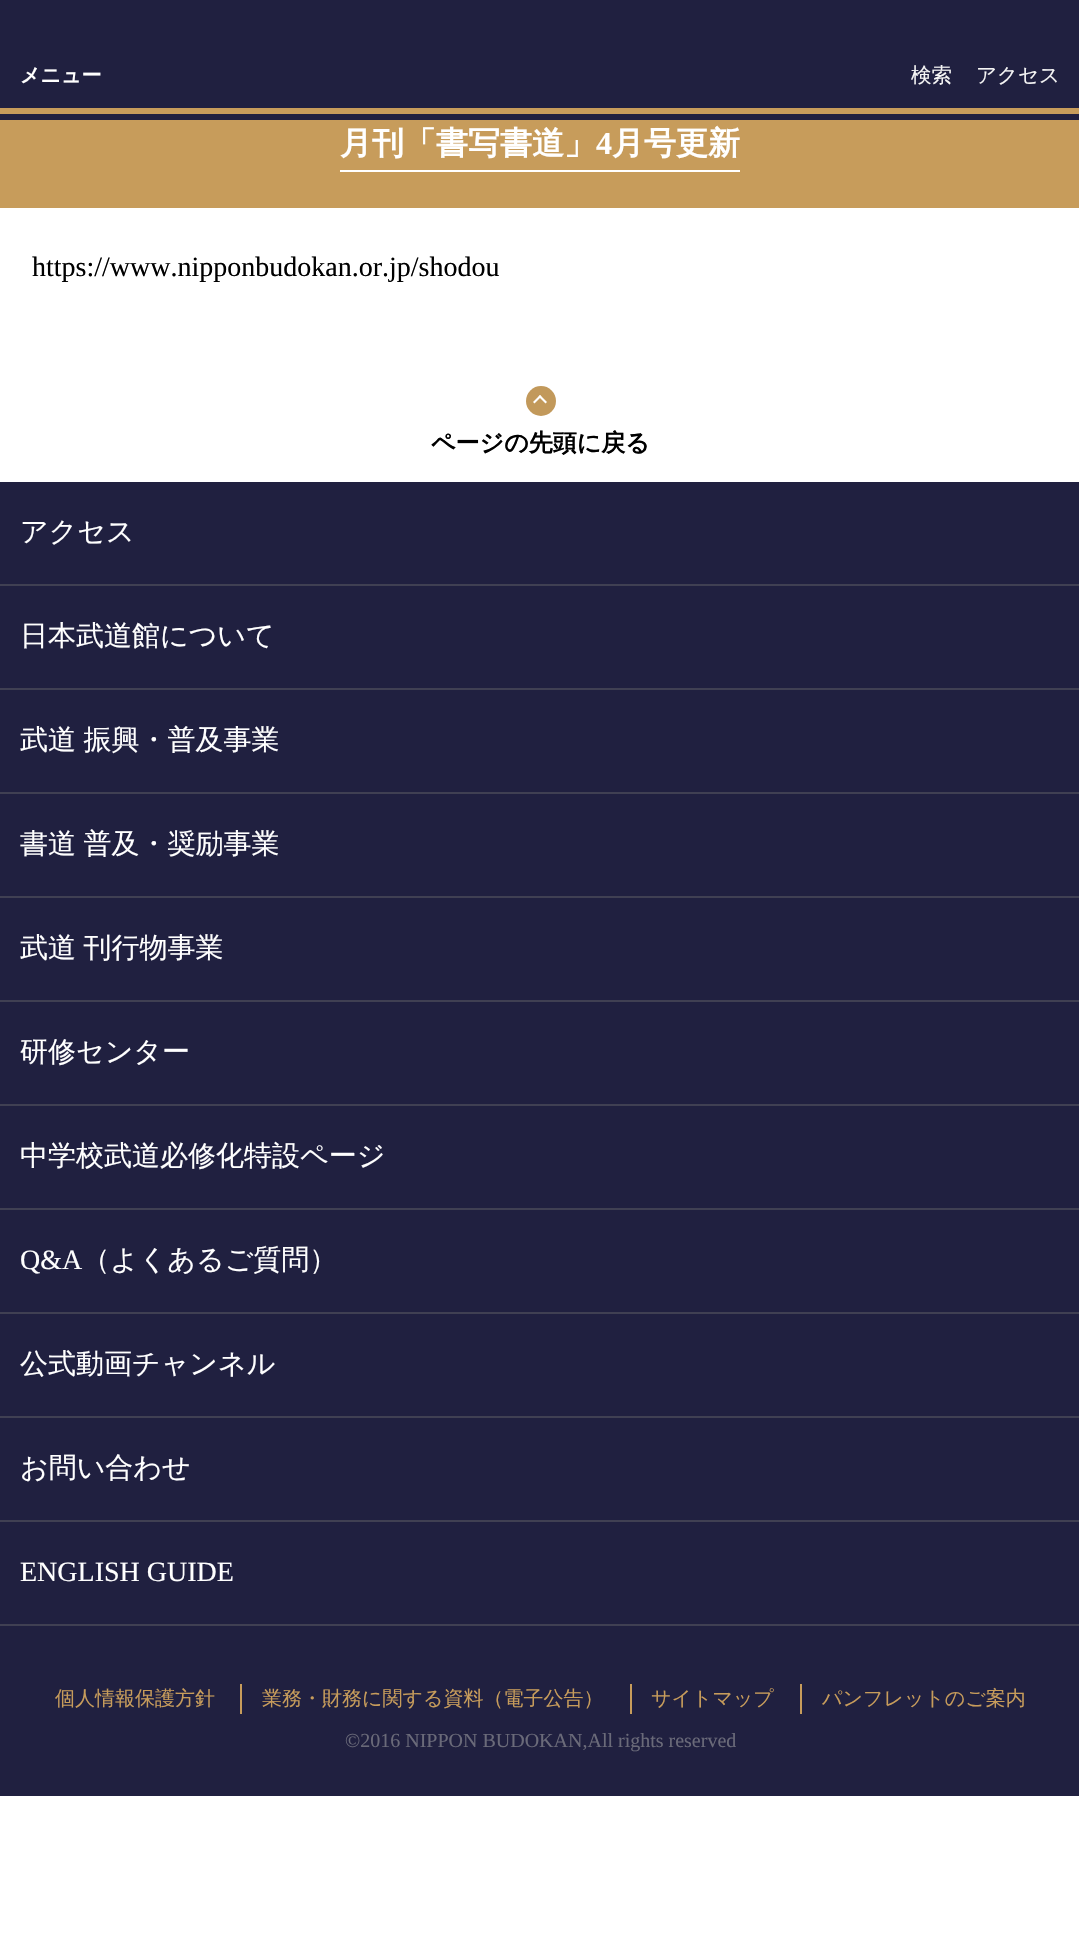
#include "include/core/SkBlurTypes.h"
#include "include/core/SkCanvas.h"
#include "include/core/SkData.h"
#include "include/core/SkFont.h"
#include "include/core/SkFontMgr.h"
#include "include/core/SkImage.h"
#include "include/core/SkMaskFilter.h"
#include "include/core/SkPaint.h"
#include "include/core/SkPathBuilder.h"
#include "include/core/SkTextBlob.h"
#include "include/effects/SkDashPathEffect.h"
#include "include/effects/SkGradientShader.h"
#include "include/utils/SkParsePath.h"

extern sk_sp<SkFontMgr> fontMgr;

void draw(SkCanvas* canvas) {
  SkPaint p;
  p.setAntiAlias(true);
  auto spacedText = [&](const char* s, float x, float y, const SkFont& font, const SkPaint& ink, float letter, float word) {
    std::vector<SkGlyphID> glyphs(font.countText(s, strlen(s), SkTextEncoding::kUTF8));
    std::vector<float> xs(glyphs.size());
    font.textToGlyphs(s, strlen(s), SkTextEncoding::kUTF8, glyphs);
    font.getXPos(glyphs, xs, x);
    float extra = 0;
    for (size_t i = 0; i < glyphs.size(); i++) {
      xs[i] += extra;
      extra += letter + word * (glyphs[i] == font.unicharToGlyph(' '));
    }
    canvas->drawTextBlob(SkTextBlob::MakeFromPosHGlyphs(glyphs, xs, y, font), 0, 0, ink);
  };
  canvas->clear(SK_ColorWHITE);
  p.setColor(SkColorSetRGB(32, 32, 64));
  canvas->drawRect(SkRect::MakeLTRB(0, 0, 1079, 120), p);
  p.setColor(SkColorSetRGB(199, 156, 91));
  canvas->drawRect(SkRect::MakeLTRB(0, 108, 1079, 114), p);
  canvas->drawRect(SkRect::MakeLTRB(0, 120, 1079, 208), p);
  p.setColor(SK_ColorWHITE);
  canvas->drawRect(SkRect::MakeLTRB(340, 170, 740, 172), p);
  p.setColor(SkColorSetRGB(194, 153, 91));
  canvas->drawCircle(541, 401, 15, p);
  p.setColor(SK_ColorWHITE);
  canvas->drawPath(SkPathBuilder().moveTo(533, 402).lineTo(540, 395).lineTo(541.5f, 396.5f).lineTo(534.5f, 403.5f).close().detach(), p);
  canvas->drawPath(SkPathBuilder().moveTo(538.5f, 396.5f).lineTo(540, 395).lineTo(547, 402).lineTo(545.5f, 403.5f).close().detach(), p);
  p.setColor(SkColorSetRGB(32, 32, 64));
  canvas->drawRect(SkRect::MakeLTRB(0, 482, 1079, 1624), p);
  p.setColor(SkColorSetRGB(64, 64, 83));
  canvas->drawRect(SkRect::MakeLTRB(0, 584, 1079, 586), p);
  canvas->drawRect(SkRect::MakeLTRB(0, 688, 1079, 690), p);
  canvas->drawRect(SkRect::MakeLTRB(0, 792, 1079, 794), p);
  canvas->drawRect(SkRect::MakeLTRB(0, 896, 1079, 898), p);
  canvas->drawRect(SkRect::MakeLTRB(0, 1000, 1079, 1002), p);
  canvas->drawRect(SkRect::MakeLTRB(0, 1104, 1079, 1106), p);
  canvas->drawRect(SkRect::MakeLTRB(0, 1208, 1079, 1210), p);
  canvas->drawRect(SkRect::MakeLTRB(0, 1312, 1079, 1314), p);
  canvas->drawRect(SkRect::MakeLTRB(0, 1416, 1079, 1418), p);
  canvas->drawRect(SkRect::MakeLTRB(0, 1520, 1079, 1522), p);
  canvas->drawRect(SkRect::MakeLTRB(0, 1624, 1079, 1626), p);
  p.setColor(SkColorSetRGB(32, 32, 64));
  canvas->drawRect(SkRect::MakeLTRB(0, 1626, 1079, 1796), p);
  p.setColor(SkColorSetRGB(199, 156, 91));
  canvas->drawRect(SkRect::MakeLTRB(240, 1684, 242, 1714), p);
  canvas->drawRect(SkRect::MakeLTRB(630, 1684, 632, 1714), p);
  canvas->drawRect(SkRect::MakeLTRB(800, 1684, 802, 1714), p);
  SkFont font1(fontMgr->matchFamilyStyle("WenQuanYi Zen Hei", SkFontStyle::Bold()), 20);
  font1.setSubpixel(true);
  p.setColor(SK_ColorWHITE);
  canvas->drawString("メニュー", 20, 82, font1, p);
  SkFont font2(fontMgr->matchFamilyStyle("WenQuanYi Zen Hei", SkFontStyle(500, SkFontStyle::kNormal_Width, SkFontStyle::kUpright_Slant)), 20.5f);
  font2.setSubpixel(true);
  p.setColor(SkColorSetRGB(245, 245, 245));
  canvas->drawString("検索", 911, 82, font2, p);
  canvas->drawString("アクセス", 976, 82, font2, p);
  SkFont font3(fontMgr->matchFamilyStyle("WenQuanYi Zen Hei", SkFontStyle::Bold()), 32);
  font3.setSubpixel(true);
  p.setColor(SK_ColorWHITE);
  canvas->drawString("月刊「書写書道」", 340, 154, font3, p);
  SkFont font4(fontMgr->matchFamilyStyle("Liberation Serif", SkFontStyle::Bold()), 32);
  font4.setSubpixel(true);
  canvas->drawString("4", 596, 154, font4, p);
  canvas->drawString("月号更新", 612, 154, font3, p);
  SkFont font5(fontMgr->matchFamilyStyle("Liberation Serif", SkFontStyle::Normal()), 28);
  font5.setSubpixel(true);
  p.setColor(SK_ColorBLACK);
  canvas->drawString("https://www.nipponbudokan.or.jp/shodou", 32, 276, font5, p);
  SkFont font6(fontMgr->matchFamilyStyle("WenQuanYi Zen Hei", SkFontStyle::Bold()), 24);
  font6.setSubpixel(true);
  canvas->drawString("ページの先頭に戻る", 431, 451, font6, p);
  SkFont font7(fontMgr->matchFamilyStyle("WenQuanYi Zen Hei", SkFontStyle(500, SkFontStyle::kNormal_Width, SkFontStyle::kUpright_Slant)), 28);
  font7.setSubpixel(true);
  p.setColor(SK_ColorWHITE);
  canvas->drawString("アクセス", 20, 541, font7, p);
  canvas->drawString("日本武道館について", 20, 645, font7, p);
  spacedText("武道 振興・普及事業", 20, 749, font7, p, 0, -1);
  spacedText("書道 普及・奨励事業", 20, 853, font7, p, 0, -1);
  spacedText("武道 刊行物事業", 20, 957, font7, p, 0, -1);
  canvas->drawString("研修センター", 20, 1061, font7, p);
  canvas->drawString("中学校武道必修化特設ページ", 20, 1165, font7, p);
  canvas->drawString("Q&A", 20, 1269, font5, p);
  canvas->drawString("（よくあるご質問）", 82, 1269, font7, p);
  canvas->drawString("公式動画チャンネル", 20, 1373, font7, p);
  canvas->drawString("お問い合わせ", 20, 1477, font7, p);
  canvas->drawString("ENGLISH GUIDE", 20, 1581, font5, p);
  SkFont font8(fontMgr->matchFamilyStyle("WenQuanYi Zen Hei", SkFontStyle(500, SkFontStyle::kNormal_Width, SkFontStyle::kUpright_Slant)), 20);
  font8.setSubpixel(true);
  p.setColor(SkColorSetRGB(199, 156, 91));
  canvas->drawString("個人情報保護方針", 55, 1705, font8, p);
  canvas->drawString("業務・財務に関する資料（電子公告）", 262, 1705, font8, p);
  canvas->drawString("サイトマップ", 651, 1705, font8, p);
  canvas->drawString("パンフレットのご案内", 822, 1705, font8, p);
  SkFont font9(fontMgr->matchFamilyStyle("Liberation Serif", SkFontStyle::Normal()), 20);
  font9.setSubpixel(true);
  p.setColor(SkColorSetRGB(106, 106, 121));
  canvas->drawString("©2016 NIPPON BUDOKAN,All rights reserved", 345, 1747, font9, p);
}
